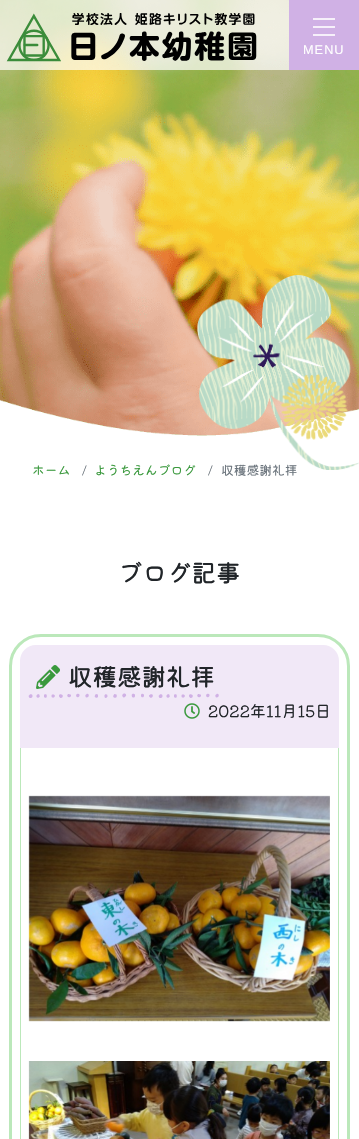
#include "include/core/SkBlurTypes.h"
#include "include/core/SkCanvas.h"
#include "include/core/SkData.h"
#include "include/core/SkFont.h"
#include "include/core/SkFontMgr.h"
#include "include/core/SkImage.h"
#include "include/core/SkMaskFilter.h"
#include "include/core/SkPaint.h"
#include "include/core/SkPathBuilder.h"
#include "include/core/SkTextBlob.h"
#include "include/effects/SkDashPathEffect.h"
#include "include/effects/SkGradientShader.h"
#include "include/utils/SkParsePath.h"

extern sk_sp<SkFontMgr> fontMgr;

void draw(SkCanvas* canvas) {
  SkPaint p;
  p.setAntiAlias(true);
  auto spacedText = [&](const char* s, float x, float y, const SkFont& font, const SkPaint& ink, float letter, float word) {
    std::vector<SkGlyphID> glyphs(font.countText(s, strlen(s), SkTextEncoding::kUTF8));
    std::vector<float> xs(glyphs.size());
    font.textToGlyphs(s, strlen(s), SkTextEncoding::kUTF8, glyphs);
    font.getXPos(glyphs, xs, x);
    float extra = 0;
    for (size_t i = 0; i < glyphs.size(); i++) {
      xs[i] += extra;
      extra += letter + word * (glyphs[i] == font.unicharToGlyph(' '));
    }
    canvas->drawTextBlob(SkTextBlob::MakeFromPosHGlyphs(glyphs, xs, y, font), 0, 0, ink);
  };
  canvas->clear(SK_ColorWHITE);
  canvas->drawImageRect(SkImages::DeferredFromEncodedData(SkData::MakeFromFileName("images/1.png")), SkRect::MakeLTRB(0, 0, 359, 436), SkSamplingOptions());
  canvas->drawImageRect(SkImages::DeferredFromEncodedData(SkData::MakeFromFileName("images/2.png")), SkRect::MakeLTRB(197, 275, 359, 470), SkSamplingOptions());
  p.setColor(SkColorSetARGB(179, 255, 255, 255));
  canvas->drawRect(SkRect::MakeLTRB(0, 0, 289, 70), p);
  canvas->drawImageRect(SkImages::DeferredFromEncodedData(SkData::MakeFromFileName("images/3.png")), SkRect::MakeLTRB(6, 13, 257, 62), SkSamplingOptions());
  p.setColor(SkColorSetRGB(208, 177, 229));
  canvas->drawRect(SkRect::MakeLTRB(289, 0, 359, 70), p);
  canvas->drawImageRect(SkImages::DeferredFromEncodedData(SkData::MakeFromFileName("images/4.png")), SkRect::MakeLTRB(313, 18, 335, 36), SkSamplingOptions());
  p.setStyle(SkPaint::kStroke_Style);
  p.setStrokeWidth(3);
  p.setColor(SkColorSetRGB(187, 232, 186));
  canvas->drawRoundRect(SkRect::MakeLTRB(10.5f, 635.5f, 348.5f, 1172.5f), 30.5f, 30.5f, p);
  p.setStyle(SkPaint::kFill_Style);
  p.setColor(SkColorSetRGB(241, 232, 247));
  canvas->drawPath(SkPathBuilder().moveTo(36, 645).lineTo(323, 645).cubicTo(332, 645, 339, 652, 339, 661).lineTo(339, 748).lineTo(20, 748).lineTo(20, 661).cubicTo(20, 652, 27, 645, 36, 645).close().detach(), p);
  canvas->drawImageRect(SkImages::DeferredFromEncodedData(SkData::MakeFromFileName("images/5.png")), SkRect::MakeLTRB(28, 693, 219, 698), SkSamplingOptions());
  canvas->drawImageRect(SkImages::DeferredFromEncodedData(SkData::MakeFromFileName("images/6.png")), SkRect::MakeLTRB(36, 665, 60, 689), SkSamplingOptions());
  canvas->drawImageRect(SkImages::DeferredFromEncodedData(SkData::MakeFromFileName("images/7.png")), SkRect::MakeLTRB(184, 703, 200, 719), SkSamplingOptions());
  p.setColor(SkColorSetRGB(187, 232, 186));
  canvas->drawPath(SkPathBuilder(SkPathFillType::kEvenOdd).moveTo(20, 748).lineTo(339, 748).lineTo(339, 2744).cubicTo(339, 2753, 332, 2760, 323, 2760).lineTo(36, 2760).cubicTo(27, 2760, 20, 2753, 20, 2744).close().moveTo(21, 748).lineTo(338, 748).lineTo(338, 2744).cubicTo(338, 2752, 331, 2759, 323, 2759).lineTo(36, 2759).cubicTo(28, 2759, 21, 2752, 21, 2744).close().detach(), p);
  canvas->drawImageRect(SkImages::DeferredFromEncodedData(SkData::MakeFromFileName("images/8.png")), SkRect::MakeLTRB(28, 795, 330, 1022), SkSamplingOptions());
  canvas->drawImageRect(SkImages::DeferredFromEncodedData(SkData::MakeFromFileName("images/9.png")), SkRect::MakeLTRB(28, 1061, 330, 1139), SkSamplingOptions());
  SkFont font1(fontMgr->matchFamilyStyle("Liberation Sans", SkFontStyle::Normal()), 12.75f);
  font1.setSubpixel(true);
  p.setColor(SK_ColorWHITE);
  spacedText("MENU", 303, 54, font1, p, 1, 0);
  SkFont font2(fontMgr->matchFamilyStyle("Kiwi Maru", SkFontStyle::Normal()), 12.75f);
  font2.setSubpixel(true);
  p.setColor(SkColorSetRGB(58, 153, 61));
  canvas->drawString("ホーム", 32, 475, font2, p);
  p.setColor(SkColorSetRGB(108, 117, 125));
  canvas->drawString("/", 82, 475, font2, p);
  p.setColor(SkColorSetRGB(58, 153, 61));
  canvas->drawString("ようちえんブログ", 94, 475, font2, p);
  p.setColor(SkColorSetRGB(108, 117, 125));
  canvas->drawString("/", 208, 475, font2, p);
  canvas->drawString("収穫感謝礼拝", 221, 475, font2, p);
  SkFont font3(fontMgr->matchFamilyStyle("Kiwi Maru", SkFontStyle(500, SkFontStyle::kNormal_Width, SkFontStyle::kUpright_Slant)), 24.5f);
  font3.setSubpixel(true);
  p.setColor(SkColorSetRGB(33, 37, 41));
  canvas->drawString("ブログ記事", 118, 582, font3, p);
  canvas->drawString("収穫感謝礼拝", 68, 686, font3, p);
  SkFont font4(fontMgr->matchFamilyStyle("Kiwi Maru", SkFontStyle::Normal()), 16);
  font4.setSubpixel(true);
  canvas->drawString("2022年11月15日", 208, 717, font4, p);
}
